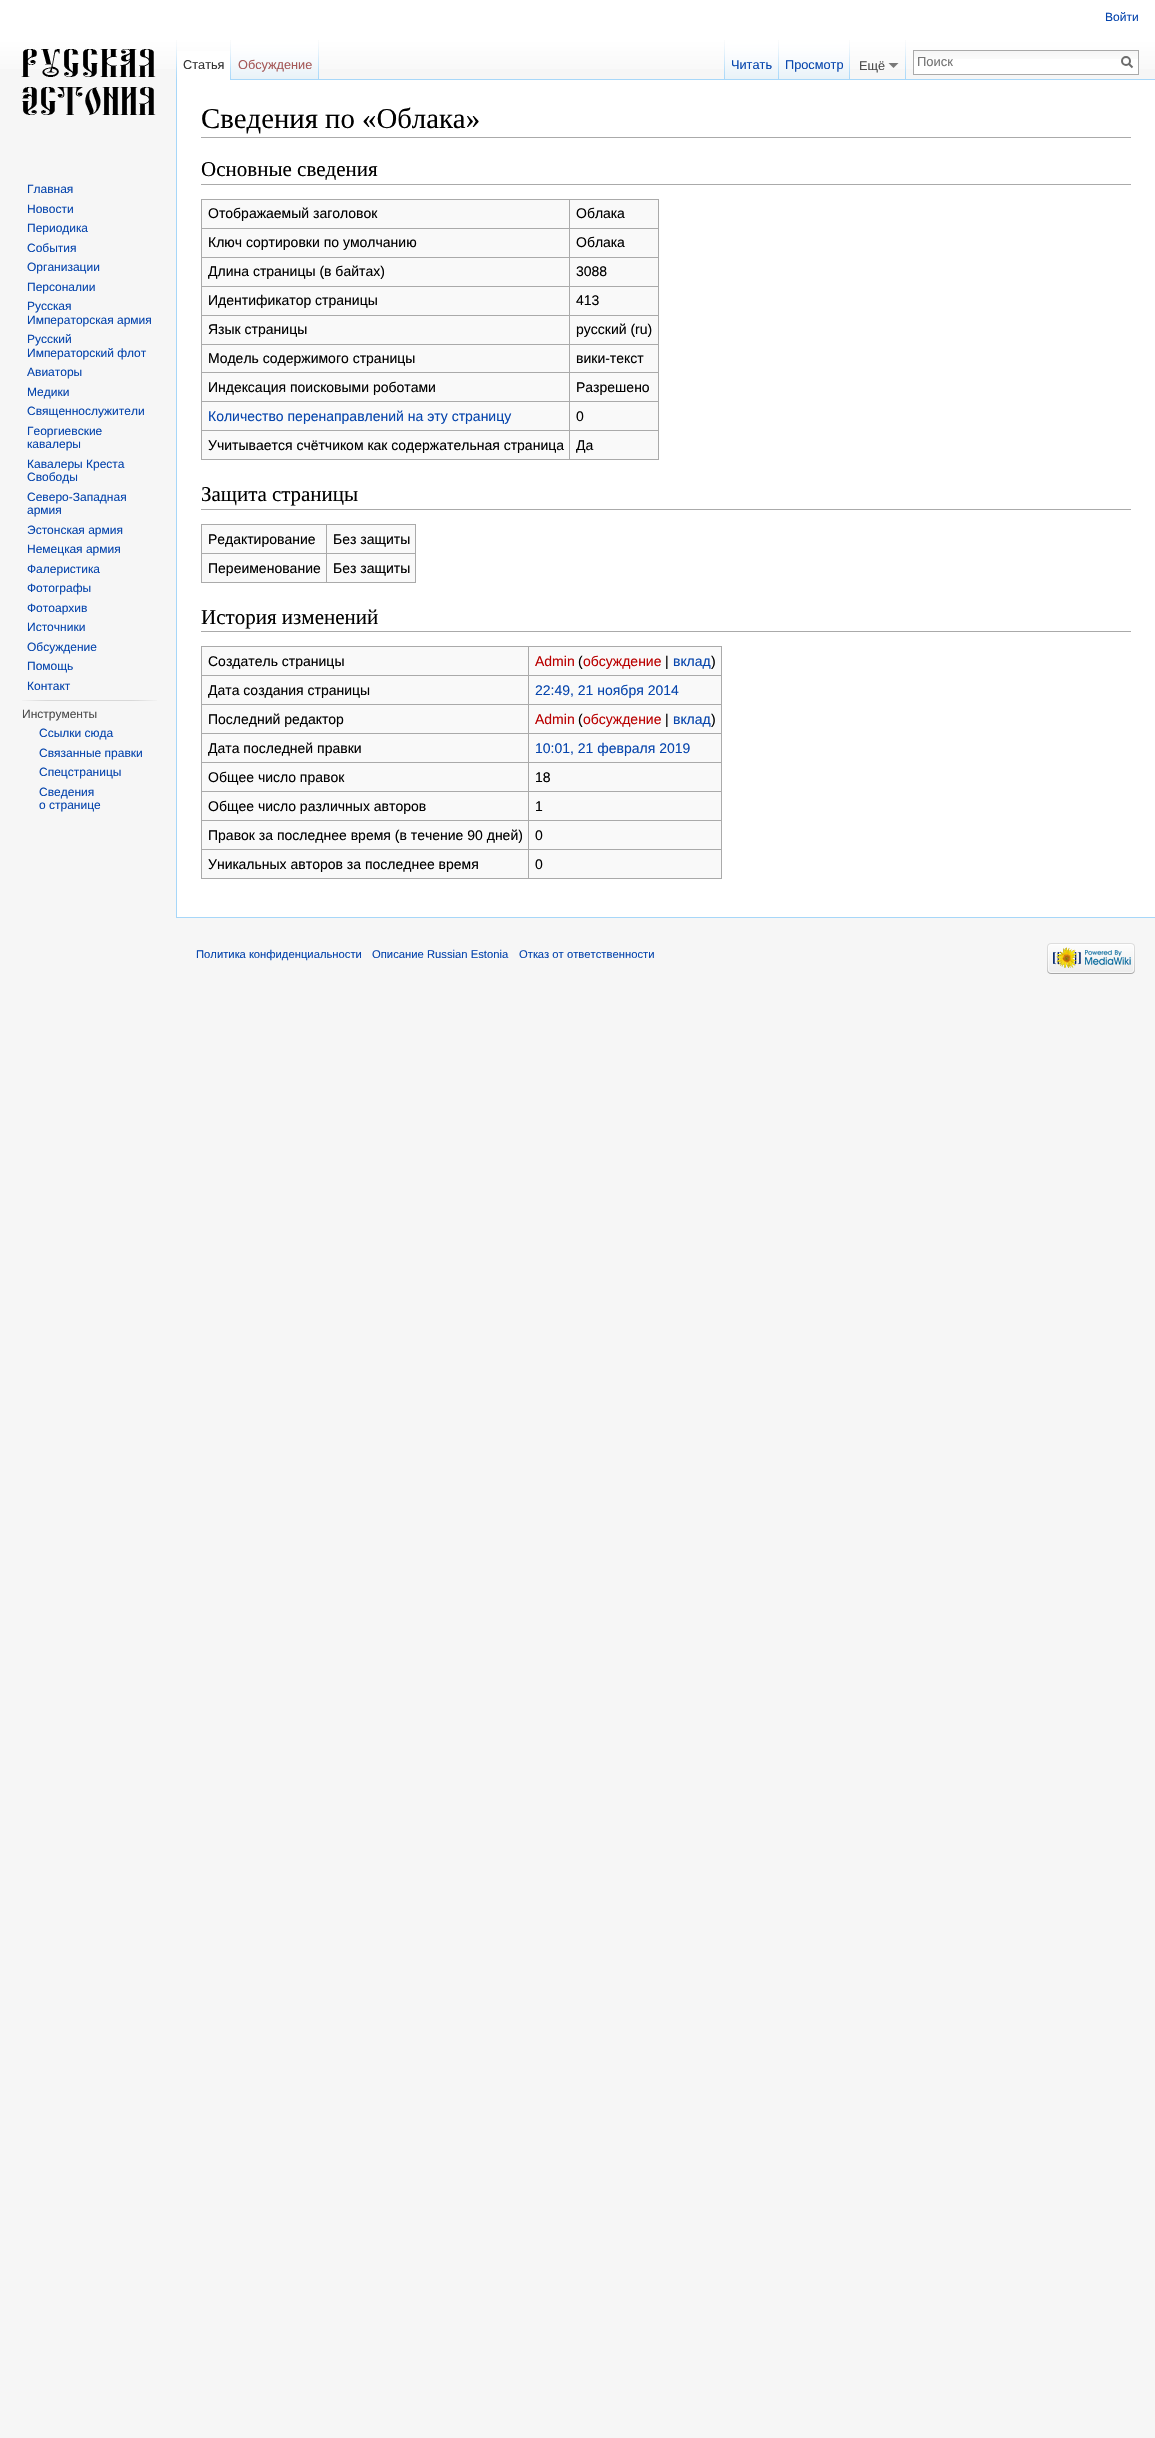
#include "include/core/SkBlurTypes.h"
#include "include/core/SkCanvas.h"
#include "include/core/SkData.h"
#include "include/core/SkFont.h"
#include "include/core/SkFontMgr.h"
#include "include/core/SkImage.h"
#include "include/core/SkMaskFilter.h"
#include "include/core/SkPaint.h"
#include "include/core/SkPathBuilder.h"
#include "include/core/SkTextBlob.h"
#include "include/effects/SkDashPathEffect.h"
#include "include/effects/SkGradientShader.h"
#include "include/utils/SkParsePath.h"

extern sk_sp<SkFontMgr> fontMgr;

void draw(SkCanvas* canvas) {
  SkPaint p;
  p.setAntiAlias(true);
  canvas->clear(SkColorSetRGB(246, 246, 246));
  {
    const SkColor colors[] = {SK_ColorWHITE, SkColorSetRGB(246, 246, 246)};
    const float stops[] = {0.5f, 1};
    const SkPoint ends[] = {{578, 0}, {578, 80}};
    p.setShader(SkGradientShader::MakeLinear(ends, colors, stops, 2, SkTileMode::kClamp));
    p.setAlpha(255);
  }
  canvas->drawRect(SkRect::MakeLTRB(0, 0, 1155, 69), p);
  canvas->drawImageRect(SkImages::DeferredFromEncodedData(SkData::MakeFromFileName("images/1.png")), SkRect::MakeLTRB(176, 40, 177, 79), SkSamplingOptions());
  p.setShader(nullptr);
  p.setColor(SK_ColorWHITE);
  canvas->drawRect(SkRect::MakeLTRB(177, 51, 230, 80), p);
  canvas->drawImageRect(SkImages::DeferredFromEncodedData(SkData::MakeFromFileName("images/2.png")), SkRect::MakeLTRB(230, 40, 231, 80), SkSamplingOptions());
  canvas->drawImageRect(SkImages::DeferredFromEncodedData(SkData::MakeFromFileName("images/3.png")), SkRect::MakeLTRB(231, 40, 319, 80), SkSamplingOptions());
  canvas->drawImageRect(SkImages::DeferredFromEncodedData(SkData::MakeFromFileName("images/4.png")), SkRect::MakeLTRB(318, 40, 319, 79), SkSamplingOptions());
  canvas->drawImageRect(SkImages::DeferredFromEncodedData(SkData::MakeFromFileName("images/1.png")), SkRect::MakeLTRB(724, 40, 725, 79), SkSamplingOptions());
  p.setColor(SkColorSetRGB(167, 215, 249));
  canvas->drawRect(SkRect::MakeLTRB(319, 79, 1155, 80), p);
  canvas->drawImageRect(SkImages::DeferredFromEncodedData(SkData::MakeFromFileName("images/5.png")), SkRect::MakeLTRB(725, 40, 779, 80), SkSamplingOptions());
  canvas->drawImageRect(SkImages::DeferredFromEncodedData(SkData::MakeFromFileName("images/4.png")), SkRect::MakeLTRB(778, 40, 779, 79), SkSamplingOptions());
  canvas->drawImageRect(SkImages::DeferredFromEncodedData(SkData::MakeFromFileName("images/6.png")), SkRect::MakeLTRB(779, 40, 850, 80), SkSamplingOptions());
  canvas->drawImageRect(SkImages::DeferredFromEncodedData(SkData::MakeFromFileName("images/4.png")), SkRect::MakeLTRB(849, 40, 850, 79), SkSamplingOptions());
  canvas->drawImageRect(SkImages::DeferredFromEncodedData(SkData::MakeFromFileName("images/1.png")), SkRect::MakeLTRB(905, 40, 906, 79), SkSamplingOptions());
  p.setColor(SkColorSetRGB(121, 121, 121));
  canvas->drawPath(SkPathBuilder().moveTo(898.5f, 63).lineTo(893.5f, 68).lineTo(888.5f, 63).close().detach(), p);
  p.setColor(SK_ColorWHITE);
  canvas->drawRect(SkRect::MakeLTRB(914, 59, 1138, 74), p);
  canvas->drawImageRect(SkImages::DeferredFromEncodedData(SkData::MakeFromFileName("images/7.png")), SkRect::MakeLTRB(914, 51, 1138, 59), SkSamplingOptions());
  p.setStyle(SkPaint::kStroke_Style);
  p.setStrokeWidth(1);
  p.setColor(SkColorSetRGB(170, 170, 170));
  canvas->drawRect(SkRect::MakeLTRB(913.5f, 50.5f, 1138.5f, 74.5f), p);
  p.setStrokeWidth(2);
  p.setColor(SkColorSetRGB(108, 108, 108));
  canvas->drawPath(SkPathBuilder().moveTo(1132.5f, 67.5f).lineTo(1128.5f, 63.5f).detach(), p);
  canvas->drawCircle(1126, 61, 4, p);
  canvas->drawImageRect(SkImages::DeferredFromEncodedData(SkData::MakeFromFileName("images/8.png")), SkRect::MakeLTRB(21, 49, 156, 115), SkSamplingOptions());
  canvas->drawImageRect(SkImages::DeferredFromEncodedData(SkData::MakeFromFileName("images/9.png")), SkRect::MakeLTRB(22, 700, 157, 701), SkSamplingOptions());
  p.setStyle(SkPaint::kFill_Style);
  p.setColor(SK_ColorWHITE);
  canvas->drawRect(SkRect::MakeLTRB(177, 80, 1155, 917), p);
  p.setColor(SkColorSetRGB(167, 215, 249));
  canvas->drawRect(SkRect::MakeLTRB(176, 917, 1155, 918), p);
  canvas->drawRect(SkRect::MakeLTRB(176, 79, 177, 918), p);
  p.setColor(SkColorSetRGB(170, 170, 170));
  canvas->drawRect(SkRect::MakeLTRB(201, 137, 1131, 138), p);
  canvas->drawRect(SkRect::MakeLTRB(201, 184, 1131, 185), p);
  p.setColor(SkColorSetRGB(249, 249, 249));
  canvas->drawRect(SkRect::MakeLTRB(202, 200, 658, 459), p);
  p.setColor(SkColorSetRGB(170, 170, 170));
  canvas->drawRect(SkRect::MakeLTRB(201, 199, 659, 200), p);
  canvas->drawRect(SkRect::MakeLTRB(658, 199, 659, 460), p);
  canvas->drawRect(SkRect::MakeLTRB(201, 459, 659, 460), p);
  canvas->drawRect(SkRect::MakeLTRB(201, 199, 202, 460), p);
  canvas->drawRect(SkRect::MakeLTRB(569, 228, 659, 229), p);
  canvas->drawRect(SkRect::MakeLTRB(569, 257, 659, 258), p);
  canvas->drawRect(SkRect::MakeLTRB(569, 286, 659, 287), p);
  canvas->drawRect(SkRect::MakeLTRB(569, 315, 659, 316), p);
  canvas->drawRect(SkRect::MakeLTRB(569, 344, 659, 345), p);
  canvas->drawRect(SkRect::MakeLTRB(569, 372, 659, 373), p);
  canvas->drawRect(SkRect::MakeLTRB(569, 401, 659, 402), p);
  canvas->drawRect(SkRect::MakeLTRB(569, 430, 659, 431), p);
  canvas->drawRect(SkRect::MakeLTRB(569, 430, 570, 460), p);
  canvas->drawRect(SkRect::MakeLTRB(201, 430, 570, 431), p);
  canvas->drawRect(SkRect::MakeLTRB(569, 401, 570, 431), p);
  canvas->drawRect(SkRect::MakeLTRB(201, 401, 570, 402), p);
  canvas->drawRect(SkRect::MakeLTRB(569, 372, 570, 402), p);
  canvas->drawRect(SkRect::MakeLTRB(201, 372, 570, 373), p);
  canvas->drawRect(SkRect::MakeLTRB(569, 344, 570, 373), p);
  canvas->drawRect(SkRect::MakeLTRB(201, 344, 570, 345), p);
  canvas->drawRect(SkRect::MakeLTRB(569, 315, 570, 345), p);
  canvas->drawRect(SkRect::MakeLTRB(201, 315, 570, 316), p);
  canvas->drawRect(SkRect::MakeLTRB(569, 286, 570, 316), p);
  canvas->drawRect(SkRect::MakeLTRB(201, 286, 570, 287), p);
  canvas->drawRect(SkRect::MakeLTRB(569, 257, 570, 287), p);
  canvas->drawRect(SkRect::MakeLTRB(201, 257, 570, 258), p);
  canvas->drawRect(SkRect::MakeLTRB(569, 228, 570, 258), p);
  canvas->drawRect(SkRect::MakeLTRB(201, 228, 570, 229), p);
  canvas->drawRect(SkRect::MakeLTRB(569, 199, 570, 229), p);
  canvas->drawRect(SkRect::MakeLTRB(201, 509, 1131, 510), p);
  p.setColor(SkColorSetRGB(249, 249, 249));
  canvas->drawRect(SkRect::MakeLTRB(202, 525, 415, 582), p);
  p.setColor(SkColorSetRGB(170, 170, 170));
  canvas->drawRect(SkRect::MakeLTRB(201, 524, 416, 525), p);
  canvas->drawRect(SkRect::MakeLTRB(415, 524, 416, 583), p);
  canvas->drawRect(SkRect::MakeLTRB(201, 582, 416, 583), p);
  canvas->drawRect(SkRect::MakeLTRB(201, 524, 202, 583), p);
  canvas->drawRect(SkRect::MakeLTRB(326, 553, 416, 554), p);
  canvas->drawRect(SkRect::MakeLTRB(326, 553, 327, 583), p);
  canvas->drawRect(SkRect::MakeLTRB(201, 553, 327, 554), p);
  canvas->drawRect(SkRect::MakeLTRB(326, 524, 327, 554), p);
  canvas->drawRect(SkRect::MakeLTRB(201, 631, 1131, 632), p);
  p.setColor(SkColorSetRGB(249, 249, 249));
  canvas->drawRect(SkRect::MakeLTRB(202, 647, 721, 878), p);
  p.setColor(SkColorSetRGB(170, 170, 170));
  canvas->drawRect(SkRect::MakeLTRB(201, 646, 722, 647), p);
  canvas->drawRect(SkRect::MakeLTRB(721, 646, 722, 879), p);
  canvas->drawRect(SkRect::MakeLTRB(201, 878, 722, 879), p);
  canvas->drawRect(SkRect::MakeLTRB(201, 646, 202, 879), p);
  canvas->drawRect(SkRect::MakeLTRB(528, 675, 722, 676), p);
  canvas->drawRect(SkRect::MakeLTRB(528, 704, 722, 705), p);
  canvas->drawRect(SkRect::MakeLTRB(528, 733, 722, 734), p);
  canvas->drawRect(SkRect::MakeLTRB(528, 762, 722, 763), p);
  canvas->drawRect(SkRect::MakeLTRB(528, 791, 722, 792), p);
  canvas->drawRect(SkRect::MakeLTRB(528, 820, 722, 821), p);
  canvas->drawRect(SkRect::MakeLTRB(528, 849, 722, 850), p);
  canvas->drawRect(SkRect::MakeLTRB(528, 849, 529, 879), p);
  canvas->drawRect(SkRect::MakeLTRB(201, 849, 529, 850), p);
  canvas->drawRect(SkRect::MakeLTRB(528, 820, 529, 850), p);
  canvas->drawRect(SkRect::MakeLTRB(201, 820, 529, 821), p);
  canvas->drawRect(SkRect::MakeLTRB(528, 791, 529, 821), p);
  canvas->drawRect(SkRect::MakeLTRB(201, 791, 529, 792), p);
  canvas->drawRect(SkRect::MakeLTRB(528, 762, 529, 792), p);
  canvas->drawRect(SkRect::MakeLTRB(201, 762, 529, 763), p);
  canvas->drawRect(SkRect::MakeLTRB(528, 733, 529, 763), p);
  canvas->drawRect(SkRect::MakeLTRB(201, 733, 529, 734), p);
  canvas->drawRect(SkRect::MakeLTRB(528, 704, 529, 734), p);
  canvas->drawRect(SkRect::MakeLTRB(201, 704, 529, 705), p);
  canvas->drawRect(SkRect::MakeLTRB(528, 675, 529, 705), p);
  canvas->drawRect(SkRect::MakeLTRB(201, 675, 529, 676), p);
  canvas->drawRect(SkRect::MakeLTRB(528, 646, 529, 676), p);
  canvas->drawImageRect(SkImages::DeferredFromEncodedData(SkData::MakeFromFileName("images/10.png")), SkRect::MakeLTRB(1047, 943, 1135, 974), SkSamplingOptions());
  SkFont font1(fontMgr->matchFamilyStyle("Liberation Sans", SkFontStyle::Normal()), 12);
  font1.setSubpixel(true);
  p.setColor(SkColorSetRGB(6, 69, 173));
  canvas->drawString("Войти", 1105, 21, font1, p);
  SkFont font2(fontMgr->matchFamilyStyle("Liberation Sans", SkFontStyle::Normal()), 12.75f);
  font2.setSubpixel(true);
  p.setColor(SkColorSetRGB(51, 51, 51));
  canvas->drawString("Статья", 183, 69, font2, p);
  p.setColor(SkColorSetRGB(165, 88, 88));
  canvas->drawString("Обсуждение", 238, 69, font2, p);
  p.setColor(SkColorSetRGB(6, 69, 173));
  canvas->drawString("Читать", 731, 69, font2, p);
  canvas->drawString("Просмотр", 785, 69, font2, p);
  p.setColor(SkColorSetRGB(77, 77, 77));
  canvas->drawString("Ещё", 859, 70, font2, p);
  SkFont font3(fontMgr->matchFamilyStyle("Liberation Sans", SkFontStyle::Normal()), 13);
  font3.setSubpixel(true);
  p.setColor(SkColorSetRGB(117, 117, 117));
  canvas->drawString("Поиск", 917, 66, font3, p);
  p.setColor(SkColorSetRGB(6, 69, 173));
  canvas->drawString("Главная", 27, 193, font1, p);
  canvas->drawString("Новости", 27, 213, font1, p);
  canvas->drawString("Периодика", 27, 232, font1, p);
  canvas->drawString("События", 27, 252, font1, p);
  canvas->drawString("Организации", 27, 271, font1, p);
  canvas->drawString("Персоналии", 27, 291, font1, p);
  canvas->drawString("Русская", 27, 310, font1, p);
  canvas->drawString("Императорская армия", 27, 324, font1, p);
  canvas->drawString("Русский", 27, 343, font1, p);
  canvas->drawString("Императорский флот", 27, 357, font1, p);
  canvas->drawString("Авиаторы", 27, 376, font1, p);
  canvas->drawString("Медики", 27, 396, font1, p);
  canvas->drawString("Священнослужители", 27, 415, font1, p);
  canvas->drawString("Георгиевские", 27, 435, font1, p);
  canvas->drawString("кавалеры", 27, 448, font1, p);
  canvas->drawString("Кавалеры Креста", 27, 468, font1, p);
  canvas->drawString("Свободы", 27, 481, font1, p);
  canvas->drawString("Северо-Западная", 27, 501, font1, p);
  canvas->drawString("армия", 27, 514, font1, p);
  canvas->drawString("Эстонская армия", 27, 534, font1, p);
  canvas->drawString("Немецкая армия", 27, 553, font1, p);
  canvas->drawString("Фалеристика", 27, 573, font1, p);
  canvas->drawString("Фотографы", 27, 592, font1, p);
  canvas->drawString("Фотоархив", 27, 612, font1, p);
  canvas->drawString("Источники", 27, 631, font1, p);
  canvas->drawString("Обсуждение", 27, 651, font1, p);
  canvas->drawString("Помощь", 27, 670, font1, p);
  canvas->drawString("Контакт", 27, 690, font1, p);
  p.setColor(SkColorSetRGB(77, 77, 77));
  canvas->drawString("Инструменты", 22, 718, font1, p);
  p.setColor(SkColorSetRGB(6, 69, 173));
  canvas->drawString("Ссылки сюда", 39, 737, font1, p);
  canvas->drawString("Связанные правки", 39, 757, font1, p);
  canvas->drawString("Спецстраницы", 39, 776, font1, p);
  canvas->drawString("Сведения", 39, 796, font1, p);
  canvas->drawString("о странице", 39, 809, font1, p);
  SkFont font4(fontMgr->matchFamilyStyle("Liberation Serif", SkFontStyle::Normal()), 28.75f);
  font4.setSubpixel(true);
  p.setColor(SK_ColorBLACK);
  canvas->drawString("Сведения по «Облака»", 201, 128, font4, p);
  SkFont font5(fontMgr->matchFamilyStyle("Liberation Serif", SkFontStyle::Normal()), 21);
  font5.setSubpixel(true);
  canvas->drawString("Основные сведения", 201, 176, font5, p);
  SkFont font6(fontMgr->matchFamilyStyle("Liberation Sans", SkFontStyle::Normal()), 14);
  font6.setSubpixel(true);
  canvas->drawString("Отображаемый заголовок", 208, 218, font6, p);
  canvas->drawString("Облака", 576, 218, font6, p);
  canvas->drawString("Ключ сортировки по умолчанию", 208, 247, font6, p);
  canvas->drawString("Облака", 576, 247, font6, p);
  canvas->drawString("Длина страницы (в байтах)", 208, 276, font6, p);
  canvas->drawString("3088", 576, 276, font6, p);
  canvas->drawString("Идентификатор страницы", 208, 305, font6, p);
  canvas->drawString("413", 576, 305, font6, p);
  canvas->drawString("Язык страницы", 208, 334, font6, p);
  canvas->drawString("русский (ru)", 576, 334, font6, p);
  canvas->drawString("Модель содержимого страницы", 208, 363, font6, p);
  canvas->drawString("вики-текст", 576, 363, font6, p);
  canvas->drawString("Индексация поисковыми роботами", 208, 392, font6, p);
  canvas->drawString("Разрешено", 576, 392, font6, p);
  p.setColor(SkColorSetRGB(6, 69, 173));
  canvas->drawString("Количество перенаправлений на эту страницу", 208, 421, font6, p);
  p.setColor(SK_ColorBLACK);
  canvas->drawString("0", 576, 421, font6, p);
  canvas->drawString("Учитывается счётчиком как содержательная страница", 208, 450, font6, p);
  canvas->drawString("Да", 576, 450, font6, p);
  canvas->drawString("Защита страницы", 201, 501, font5, p);
  canvas->drawString("Редактирование", 208, 544, font6, p);
  canvas->drawString("Без защиты", 333, 544, font6, p);
  canvas->drawString("Переименование", 208, 573, font6, p);
  canvas->drawString("Без защиты", 333, 573, font6, p);
  canvas->drawString("История изменений", 201, 624, font5, p);
  canvas->drawString("Создатель страницы", 208, 666, font6, p);
  p.setColor(SkColorSetRGB(186, 0, 0));
  canvas->drawString("Admin", 535, 666, font6, p);
  p.setColor(SK_ColorBLACK);
  canvas->drawString("(", 578, 666, font6, p);
  p.setColor(SkColorSetRGB(186, 0, 0));
  canvas->drawString("обсуждение", 583, 666, font6, p);
  p.setColor(SK_ColorBLACK);
  canvas->drawString("|", 665, 666, font6, p);
  p.setColor(SkColorSetRGB(6, 69, 173));
  canvas->drawString("вклад", 673, 666, font6, p);
  p.setColor(SK_ColorBLACK);
  canvas->drawString(")", 711, 666, font6, p);
  canvas->drawString("Дата создания страницы", 208, 695, font6, p);
  p.setColor(SkColorSetRGB(6, 69, 173));
  canvas->drawString("22:49, 21 ноября 2014", 535, 695, font6, p);
  p.setColor(SK_ColorBLACK);
  canvas->drawString("Последний редактор", 208, 724, font6, p);
  p.setColor(SkColorSetRGB(186, 0, 0));
  canvas->drawString("Admin", 535, 724, font6, p);
  p.setColor(SK_ColorBLACK);
  canvas->drawString("(", 578, 724, font6, p);
  p.setColor(SkColorSetRGB(186, 0, 0));
  canvas->drawString("обсуждение", 583, 724, font6, p);
  p.setColor(SK_ColorBLACK);
  canvas->drawString("|", 665, 724, font6, p);
  p.setColor(SkColorSetRGB(6, 69, 173));
  canvas->drawString("вклад", 673, 724, font6, p);
  p.setColor(SK_ColorBLACK);
  canvas->drawString(")", 711, 724, font6, p);
  canvas->drawString("Дата последней правки", 208, 753, font6, p);
  p.setColor(SkColorSetRGB(6, 69, 173));
  canvas->drawString("10:01, 21 февраля 2019", 535, 753, font6, p);
  p.setColor(SK_ColorBLACK);
  canvas->drawString("Общее число правок", 208, 782, font6, p);
  canvas->drawString("18", 535, 782, font6, p);
  canvas->drawString("Общее число различных авторов", 208, 811, font6, p);
  canvas->drawString("1", 535, 811, font6, p);
  canvas->drawString("Правок за последнее время (в течение 90 дней)", 208, 840, font6, p);
  canvas->drawString("0", 535, 840, font6, p);
  canvas->drawString("Уникальных авторов за последнее время", 208, 869, font6, p);
  canvas->drawString("0", 535, 869, font6, p);
  SkFont font7(fontMgr->matchFamilyStyle("Liberation Sans", SkFontStyle::Normal()), 11.25f);
  font7.setSubpixel(true);
  p.setColor(SkColorSetRGB(6, 69, 173));
  canvas->drawString("Политика конфиденциальности", 196, 958, font7, p);
  canvas->drawString("Описание Russian Estonia", 372, 958, font7, p);
  canvas->drawString("Отказ от ответственности", 519, 958, font7, p);
}
